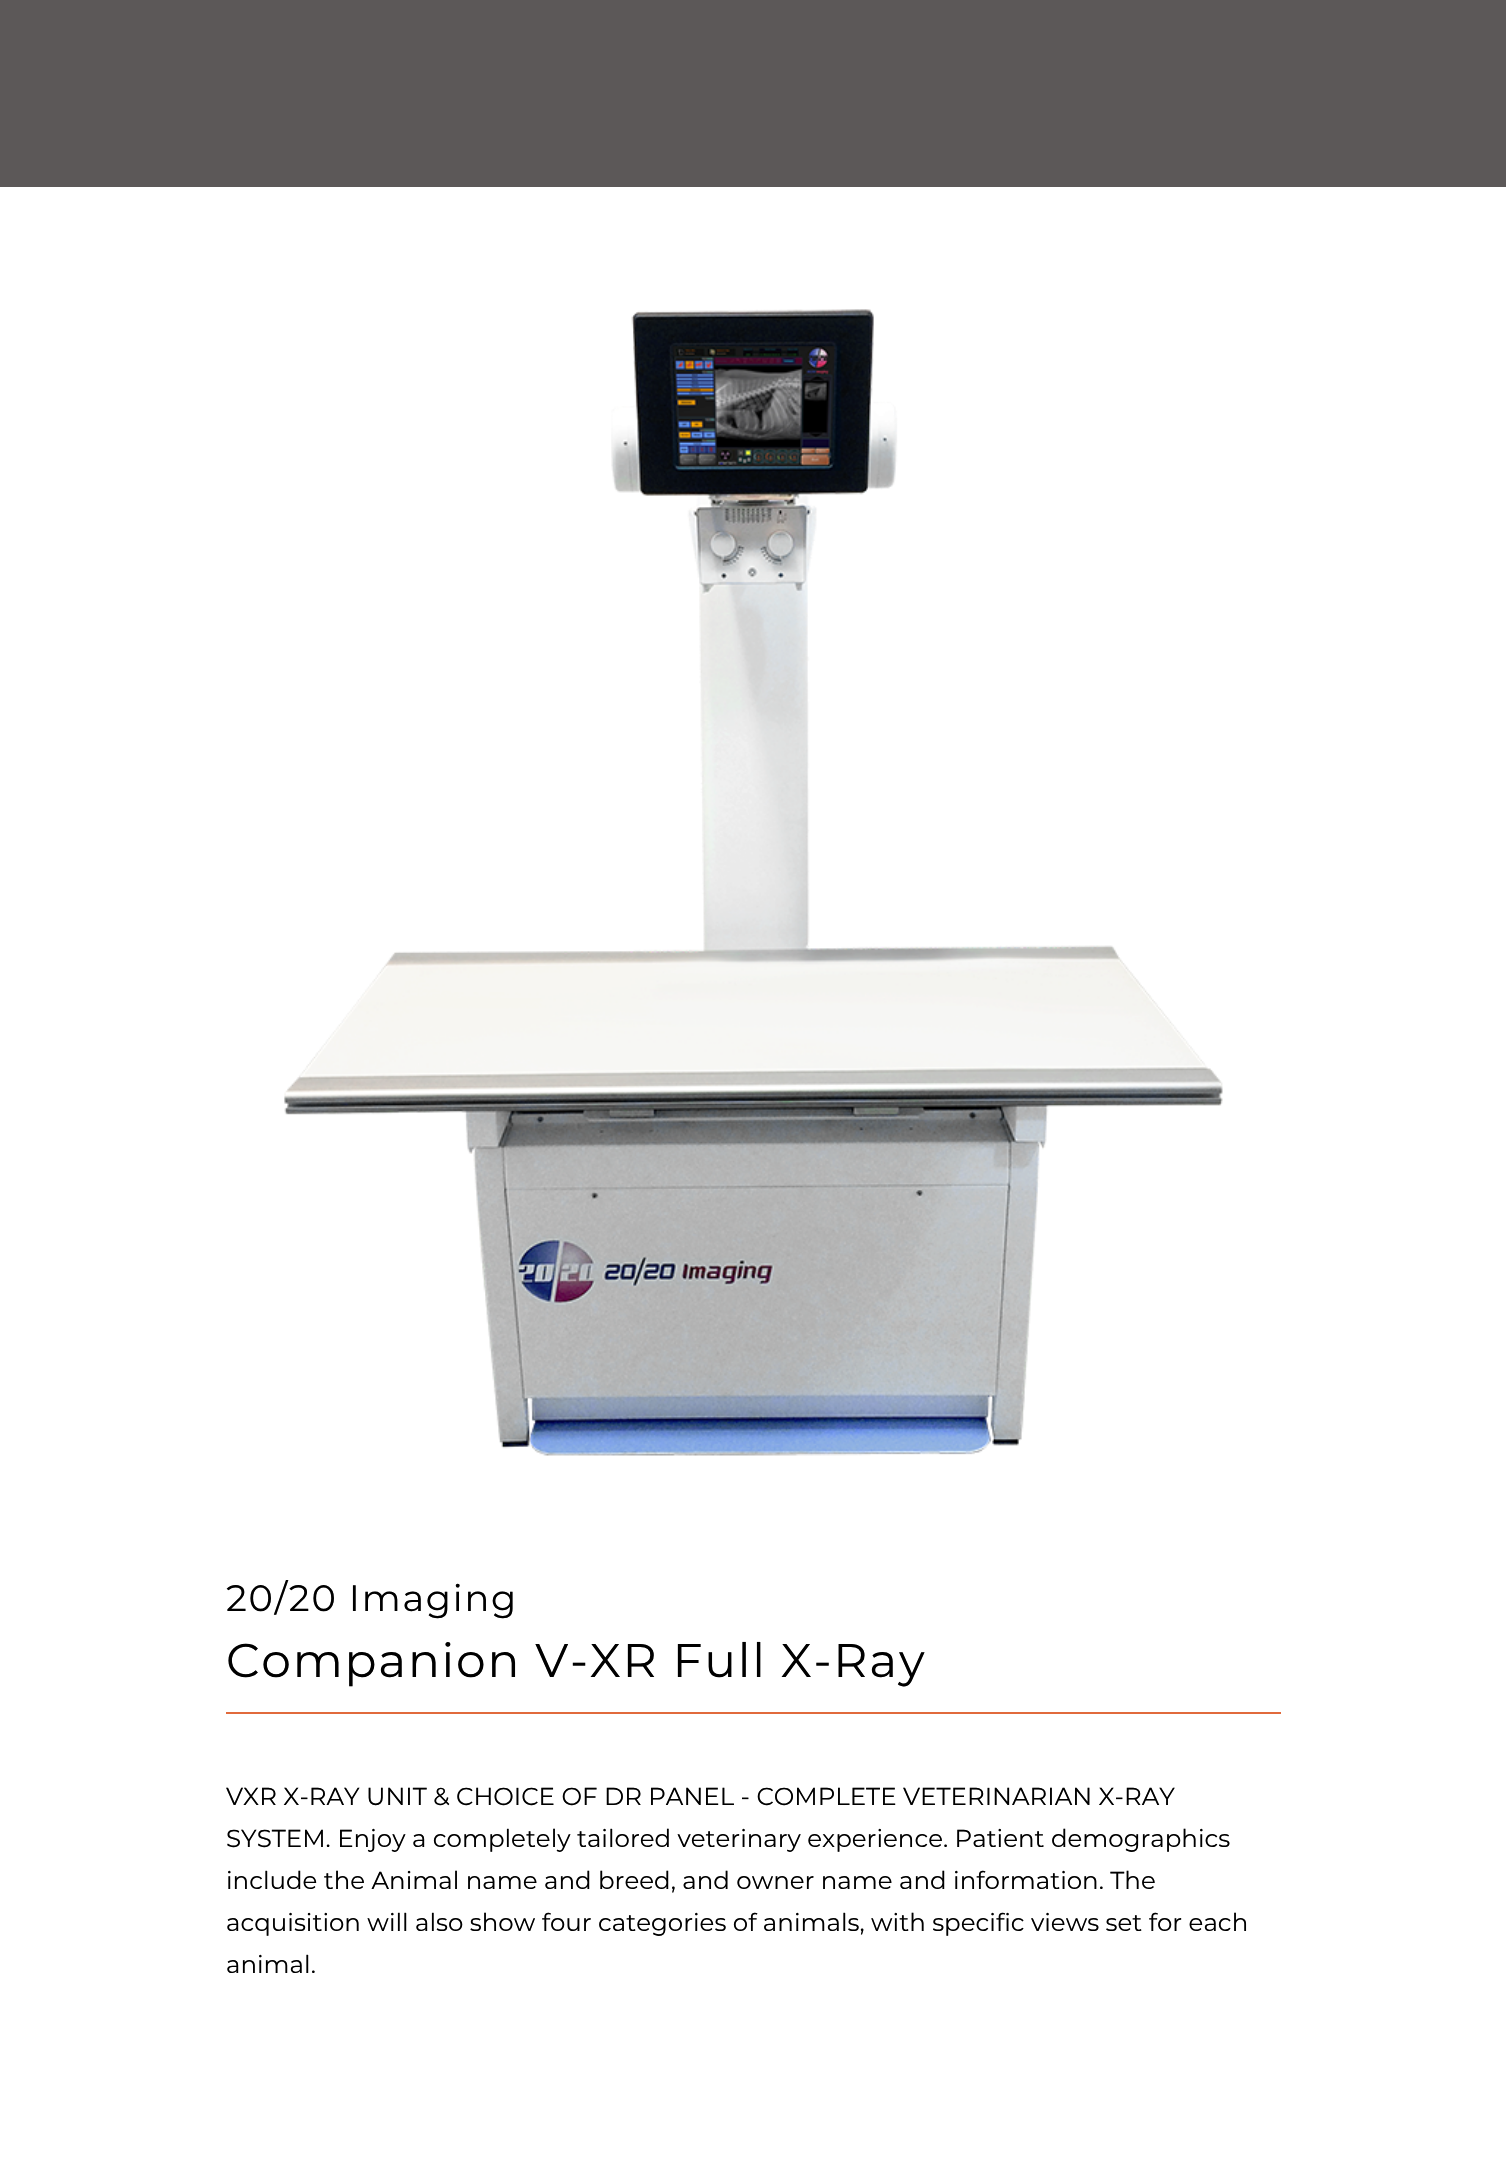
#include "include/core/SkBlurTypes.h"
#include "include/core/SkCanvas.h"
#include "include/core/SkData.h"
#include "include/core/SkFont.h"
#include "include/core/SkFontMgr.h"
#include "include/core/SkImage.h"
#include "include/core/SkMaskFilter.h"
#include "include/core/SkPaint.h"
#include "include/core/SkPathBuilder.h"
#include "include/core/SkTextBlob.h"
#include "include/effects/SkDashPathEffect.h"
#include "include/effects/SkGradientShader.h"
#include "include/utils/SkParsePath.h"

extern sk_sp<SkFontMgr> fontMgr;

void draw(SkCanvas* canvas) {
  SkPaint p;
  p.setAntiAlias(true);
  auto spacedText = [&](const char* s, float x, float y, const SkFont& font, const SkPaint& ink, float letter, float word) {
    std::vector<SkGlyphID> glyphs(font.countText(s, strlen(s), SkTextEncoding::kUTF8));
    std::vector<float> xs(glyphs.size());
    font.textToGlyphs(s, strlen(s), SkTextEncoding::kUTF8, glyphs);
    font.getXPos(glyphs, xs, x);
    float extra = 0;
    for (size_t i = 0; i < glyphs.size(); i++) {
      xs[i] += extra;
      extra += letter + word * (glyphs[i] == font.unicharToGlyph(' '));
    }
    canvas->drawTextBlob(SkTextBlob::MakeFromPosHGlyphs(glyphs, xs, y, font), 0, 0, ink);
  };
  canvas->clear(SK_ColorWHITE);
  p.setColor(SkColorSetRGB(92, 88, 88));
  canvas->drawRect(SkRect::MakeLTRB(0, 0, 1506, 187), p);
  canvas->drawImageRect(SkImages::DeferredFromEncodedData(SkData::MakeFromFileName("images/1.png")), SkRect::MakeLTRB(284, 309, 1223, 1456), SkSamplingOptions());
  p.setColor(SkColorSetRGB(225, 106, 60));
  canvas->drawRect(SkRect::MakeLTRB(226, 1712, 1281, 1714), p);
  SkFont font1(fontMgr->matchFamilyStyle("Montserrat", SkFontStyle::Normal()), 36.75f);
  font1.setSubpixel(true);
  p.setColor(SK_ColorBLACK);
  spacedText("20/20 Imaging", 226, 1611, font1, p, 1.75f, 0);
  SkFont font2(fontMgr->matchFamilyStyle("Montserrat", SkFontStyle::Normal()), 47.25f);
  font2.setSubpixel(true);
  spacedText("Companion V-XR Full X-Ray", 226, 1677, font2, p, 1.75f, 0);
  SkFont font3(fontMgr->matchFamilyStyle("Montserrat", SkFontStyle::Normal()), 24.5f);
  font3.setSubpixel(true);
  canvas->drawString("VXR X-RAY UNIT & CHOICE OF DR PANEL - COMPLETE VETERINARIAN X-RAY", 226, 1805, font3, p);
  canvas->drawString("SYSTEM. Enjoy a completely tailored veterinary experience. Patient demographics", 226, 1847, font3, p);
  canvas->drawString("include the Animal name and breed, and owner name and information. The", 226, 1889, font3, p);
  canvas->drawString("acquisition will also show four categories of animals, with specific views set for each", 226, 1931, font3, p);
  canvas->drawString("animal.", 226, 1973, font3, p);
}
